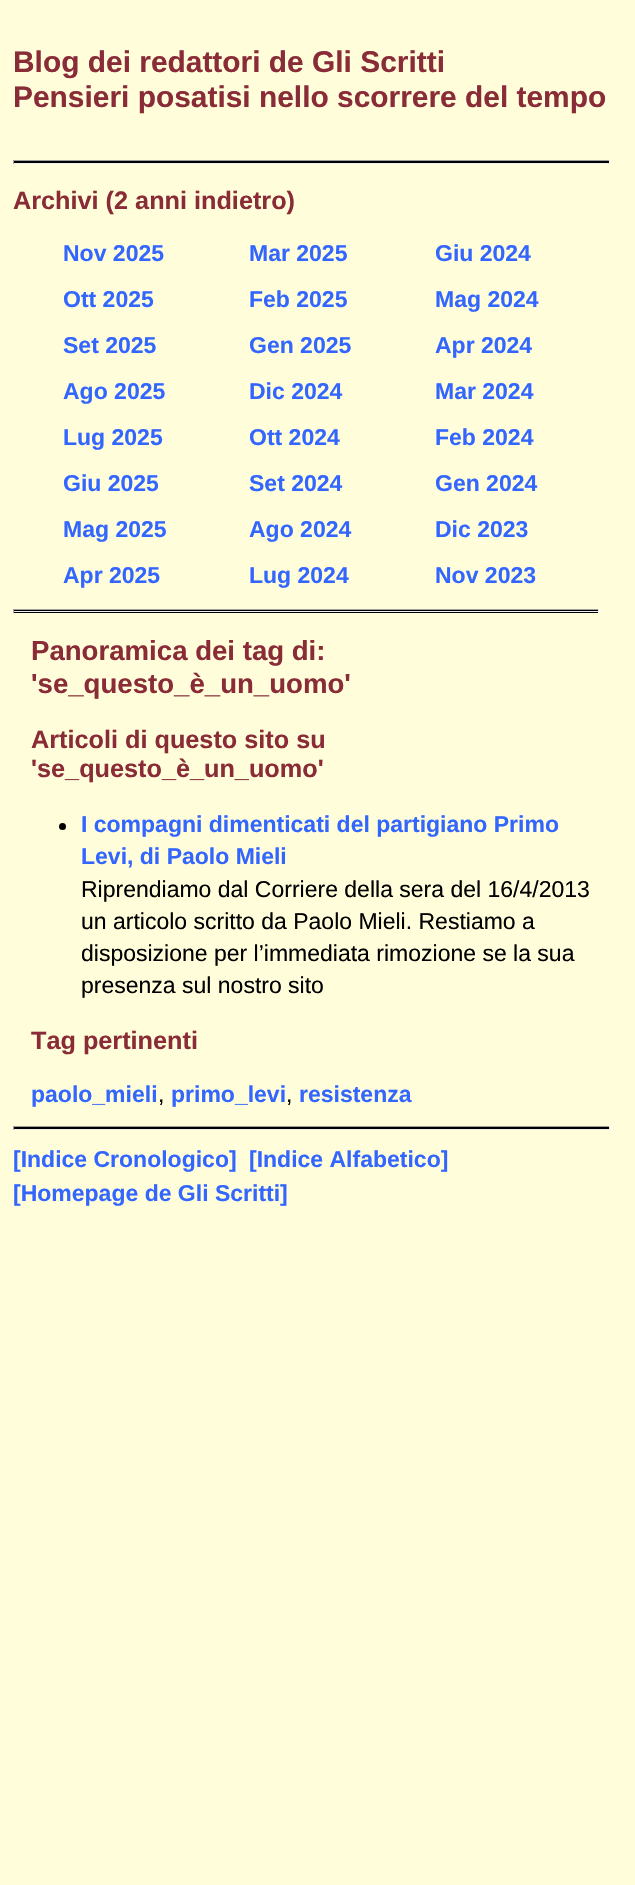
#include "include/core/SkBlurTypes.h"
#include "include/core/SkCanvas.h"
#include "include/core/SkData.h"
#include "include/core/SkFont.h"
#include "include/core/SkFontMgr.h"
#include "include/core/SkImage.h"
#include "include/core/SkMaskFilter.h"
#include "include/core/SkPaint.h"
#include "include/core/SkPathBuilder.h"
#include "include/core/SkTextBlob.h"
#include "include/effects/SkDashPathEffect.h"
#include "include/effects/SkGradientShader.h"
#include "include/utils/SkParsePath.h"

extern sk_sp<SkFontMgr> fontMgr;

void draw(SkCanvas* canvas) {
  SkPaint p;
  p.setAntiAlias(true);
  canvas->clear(SkColorSetRGB(255, 253, 218));
  p.setColor(SK_ColorBLACK);
  canvas->drawRect(SkRect::MakeLTRB(13, 161, 610, 163), p);
  p.setColor(SkColorSetRGB(159, 159, 159));
  canvas->drawRect(SkRect::MakeLTRB(13, 160, 610, 161), p);
  p.setColor(SkColorSetRGB(238, 238, 238));
  canvas->drawRect(SkRect::MakeLTRB(609, 160, 610, 164), p);
  canvas->drawRect(SkRect::MakeLTRB(13, 163, 610, 164), p);
  p.setColor(SkColorSetRGB(159, 159, 159));
  canvas->drawRect(SkRect::MakeLTRB(13, 160, 14, 164), p);
  p.setColor(SK_ColorBLACK);
  canvas->drawRect(SkRect::MakeLTRB(13, 610, 599, 613), p);
  p.setColor(SkColorSetRGB(159, 159, 159));
  canvas->drawRect(SkRect::MakeLTRB(13, 609, 599, 610), p);
  p.setColor(SkColorSetRGB(238, 238, 238));
  canvas->drawRect(SkRect::MakeLTRB(598, 609, 599, 613), p);
  canvas->drawRect(SkRect::MakeLTRB(13, 611, 599, 612), p);
  p.setColor(SkColorSetRGB(159, 159, 159));
  canvas->drawRect(SkRect::MakeLTRB(13, 609, 14, 613), p);
  p.setColor(SK_ColorBLACK);
  canvas->drawCircle(62.5f, 826.5f, 3.5f, p);
  canvas->drawRect(SkRect::MakeLTRB(13, 1127, 610, 1129), p);
  p.setColor(SkColorSetRGB(159, 159, 159));
  canvas->drawRect(SkRect::MakeLTRB(13, 1126, 610, 1127), p);
  p.setColor(SkColorSetRGB(238, 238, 238));
  canvas->drawRect(SkRect::MakeLTRB(609, 1126, 610, 1130), p);
  canvas->drawRect(SkRect::MakeLTRB(13, 1129, 610, 1130), p);
  p.setColor(SkColorSetRGB(159, 159, 159));
  canvas->drawRect(SkRect::MakeLTRB(13, 1126, 14, 1130), p);
  SkFont font1(fontMgr->matchFamilyStyle("Liberation Sans", SkFontStyle::Bold()), 29.9f);
  font1.setSubpixel(true);
  p.setColor(SkColorSetRGB(137, 44, 55));
  canvas->drawString("Blog dei redattori de Gli Scritti", 13, 72, font1, p);
  canvas->drawString("Pensieri posatisi nello scorrere del tempo", 13, 107, font1, p);
  SkFont font2(fontMgr->matchFamilyStyle("Liberation Sans", SkFontStyle::Bold()), 25.25f);
  font2.setSubpixel(true);
  canvas->drawString("Archivi (2 anni indietro)", 13, 209, font2, p);
  SkFont font3(fontMgr->matchFamilyStyle("Liberation Sans", SkFontStyle::Bold()), 23);
  font3.setSubpixel(true);
  p.setColor(SkColorSetRGB(51, 102, 255));
  canvas->drawString("Nov 2025", 63, 261, font3, p);
  canvas->drawString("Mar 2025", 249, 261, font3, p);
  canvas->drawString("Giu 2024", 435, 261, font3, p);
  canvas->drawString("Ott 2025", 63, 307, font3, p);
  canvas->drawString("Feb 2025", 249, 307, font3, p);
  canvas->drawString("Mag 2024", 435, 307, font3, p);
  canvas->drawString("Set 2025", 63, 353, font3, p);
  canvas->drawString("Gen 2025", 249, 353, font3, p);
  canvas->drawString("Apr 2024", 435, 353, font3, p);
  canvas->drawString("Ago 2025", 63, 399, font3, p);
  canvas->drawString("Dic 2024", 249, 399, font3, p);
  canvas->drawString("Mar 2024", 435, 399, font3, p);
  canvas->drawString("Lug 2025", 63, 445, font3, p);
  canvas->drawString("Ott 2024", 249, 445, font3, p);
  canvas->drawString("Feb 2024", 435, 445, font3, p);
  canvas->drawString("Giu 2025", 63, 491, font3, p);
  canvas->drawString("Set 2024", 249, 491, font3, p);
  canvas->drawString("Gen 2024", 435, 491, font3, p);
  canvas->drawString("Mag 2025", 63, 537, font3, p);
  canvas->drawString("Ago 2024", 249, 537, font3, p);
  canvas->drawString("Dic 2023", 435, 537, font3, p);
  canvas->drawString("Apr 2025", 63, 583, font3, p);
  canvas->drawString("Lug 2024", 249, 583, font3, p);
  canvas->drawString("Nov 2023", 435, 583, font3, p);
  SkFont font4(fontMgr->matchFamilyStyle("Liberation Sans", SkFontStyle::Bold()), 27.6f);
  font4.setSubpixel(true);
  p.setColor(SkColorSetRGB(137, 44, 55));
  canvas->drawString("Panoramica dei tag di:", 31, 660, font4, p);
  canvas->drawString("'se_questo_è_un_uomo'", 31, 693, font4, p);
  canvas->drawString("Articoli di questo sito su", 31, 748, font2, p);
  canvas->drawString("'se_questo_è_un_uomo'", 31, 777, font2, p);
  p.setColor(SkColorSetRGB(51, 102, 255));
  canvas->drawString("I compagni dimenticati del partigiano Primo", 81, 832, font3, p);
  canvas->drawString("Levi, di Paolo Mieli", 81, 864, font3, p);
  SkFont font5(fontMgr->matchFamilyStyle("Liberation Sans", SkFontStyle::Normal()), 23);
  font5.setSubpixel(true);
  p.setColor(SK_ColorBLACK);
  canvas->drawString("Riprendiamo dal Corriere della sera del 16/4/2013", 81, 897, font5, p);
  canvas->drawString("un articolo scritto da Paolo Mieli. Restiamo a", 81, 929, font5, p);
  canvas->drawString("disposizione per l’immediata rimozione se la sua", 81, 961, font5, p);
  canvas->drawString("presenza sul nostro sito", 81, 993, font5, p);
  p.setColor(SkColorSetRGB(137, 44, 55));
  canvas->drawString("Tag pertinenti", 31, 1049, font2, p);
  p.setColor(SkColorSetRGB(51, 102, 255));
  canvas->drawString("paolo_mieli", 31, 1102, font3, p);
  p.setColor(SK_ColorBLACK);
  canvas->drawString(",", 158, 1102, font5, p);
  p.setColor(SkColorSetRGB(51, 102, 255));
  canvas->drawString("primo_levi", 171, 1102, font3, p);
  p.setColor(SK_ColorBLACK);
  canvas->drawString(",", 286, 1102, font5, p);
  p.setColor(SkColorSetRGB(51, 102, 255));
  canvas->drawString("resistenza", 299, 1102, font3, p);
  canvas->drawString("[Indice Cronologico]", 13, 1167, font3, p);
  canvas->drawString("[Indice Alfabetico]", 249, 1167, font3, p);
  canvas->drawString("[Homepage de Gli Scritti]", 13, 1201, font3, p);
}
